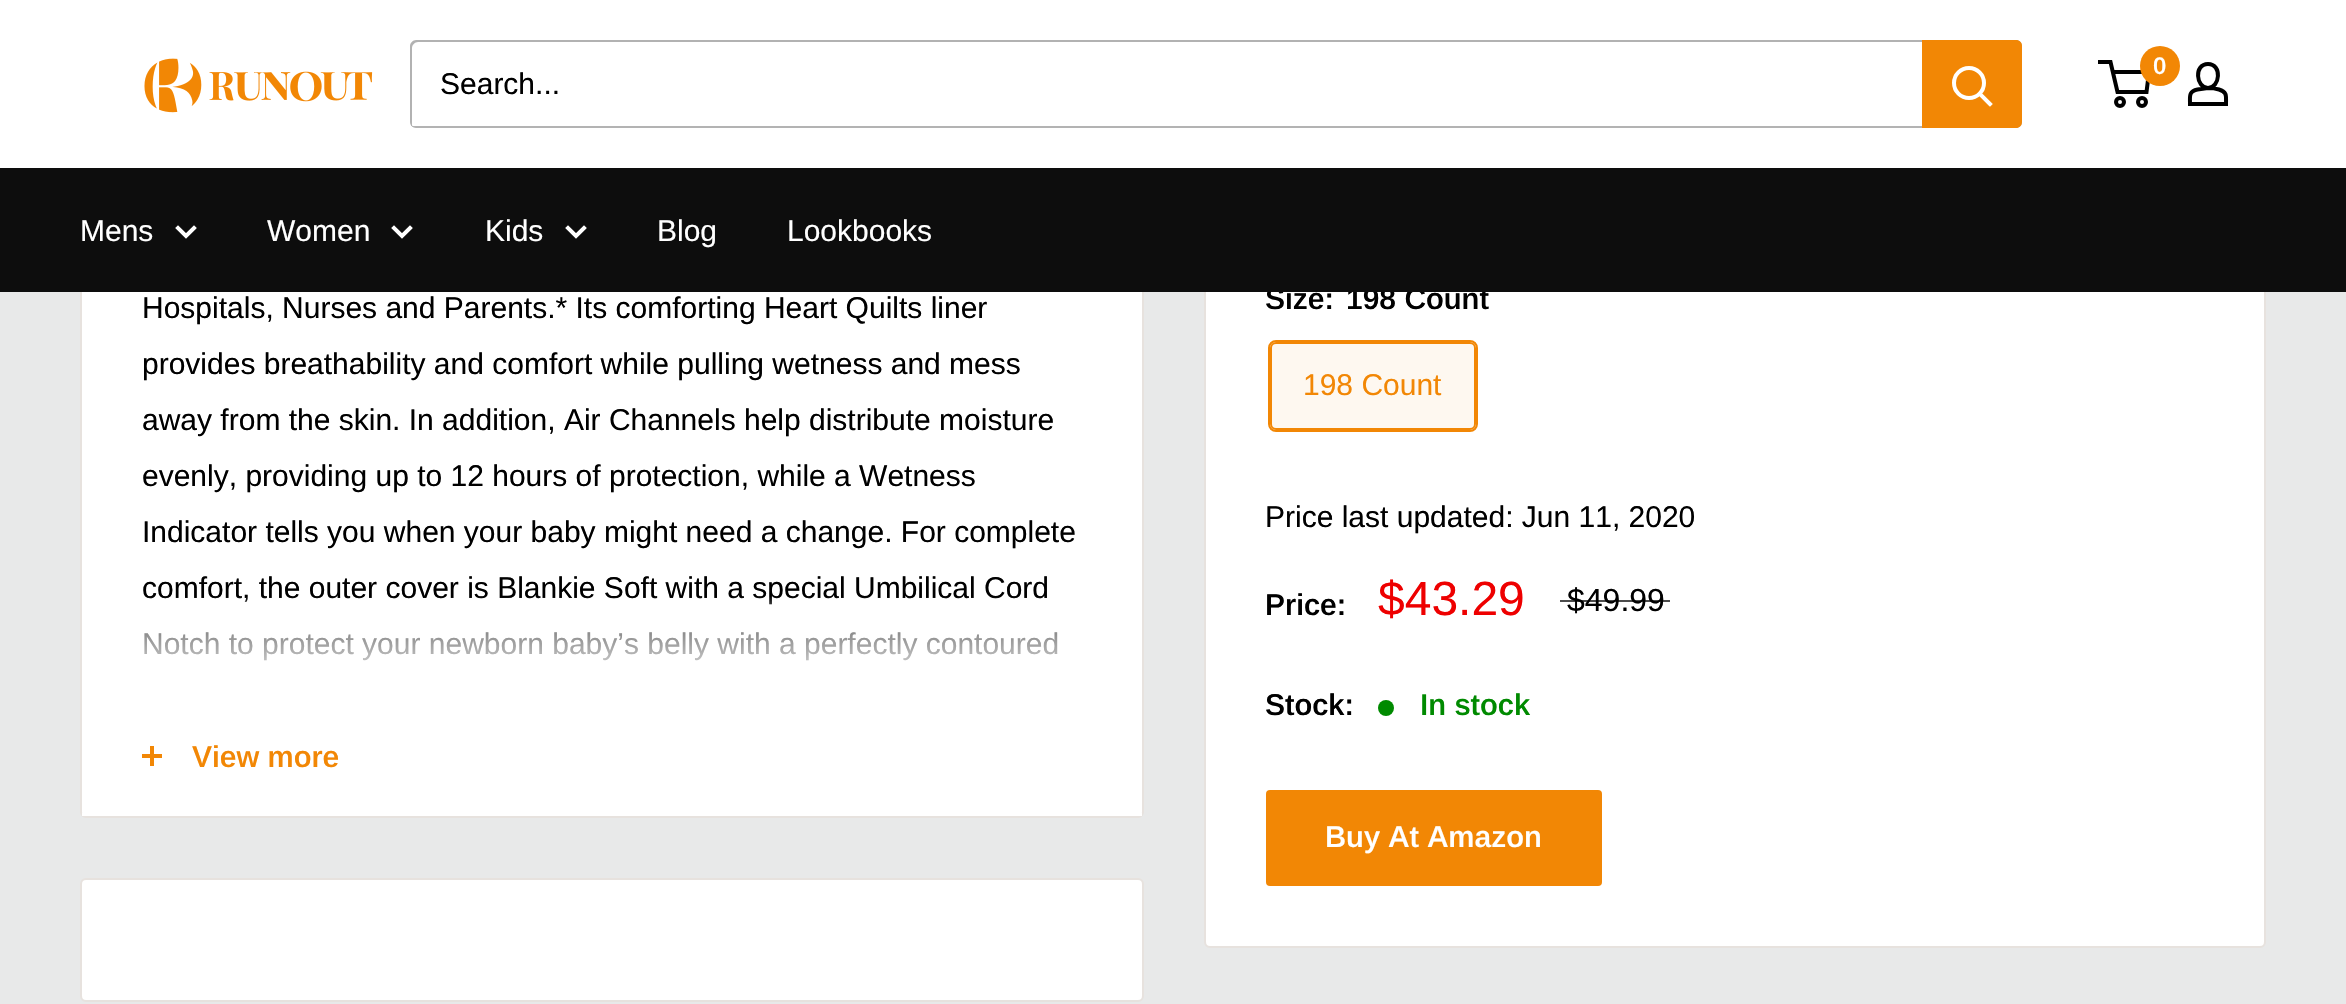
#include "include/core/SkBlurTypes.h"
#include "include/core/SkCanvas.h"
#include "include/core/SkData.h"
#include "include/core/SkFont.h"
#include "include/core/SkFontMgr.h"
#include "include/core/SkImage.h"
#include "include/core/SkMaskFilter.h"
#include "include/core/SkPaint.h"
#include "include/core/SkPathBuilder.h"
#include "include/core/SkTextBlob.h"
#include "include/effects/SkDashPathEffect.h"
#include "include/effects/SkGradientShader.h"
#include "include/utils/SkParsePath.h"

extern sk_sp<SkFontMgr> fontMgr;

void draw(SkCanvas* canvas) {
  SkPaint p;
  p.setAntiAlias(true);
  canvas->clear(SkColorSetRGB(232, 233, 233));
  p.setColor(SK_ColorWHITE);
  canvas->drawRoundRect(SkRect::MakeLTRB(81, 53, 1143, 817), 5, 5, p);
  p.setStyle(SkPaint::kStroke_Style);
  p.setStrokeWidth(2);
  p.setColor(SkColorSetRGB(231, 226, 222));
  canvas->drawRoundRect(SkRect::MakeLTRB(81, 53, 1143, 817), 5, 5, p);
  p.setStyle(SkPaint::kFill_Style);
  p.setColor(SK_ColorWHITE);
  canvas->drawRoundRect(SkRect::MakeLTRB(1205, -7, 2265, 947), 5, 5, p);
  p.setStyle(SkPaint::kStroke_Style);
  p.setColor(SkColorSetRGB(231, 226, 222));
  canvas->drawRoundRect(SkRect::MakeLTRB(1205, -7, 2265, 947), 5, 5, p);
  p.setStyle(SkPaint::kFill_Style);
  p.setColor(SK_ColorWHITE);
  canvas->drawRect(SkRect::MakeLTRB(0, 0, 2346, 168), p);
  canvas->drawImageRect(SkImages::DeferredFromEncodedData(SkData::MakeFromFileName("images/1.png")), SkRect::MakeLTRB(144, 58, 373, 113), SkSamplingOptions());
  p.setColor(SkColorSetRGB(179, 179, 179));
  canvas->drawPath(SkPathBuilder().moveTo(411, 125).cubicTo(412, 127, 414, 128, 416, 128).lineTo(2016, 128).cubicTo(2019, 128, 2022, 125, 2022, 122).lineTo(2022, 46).cubicTo(2022, 44, 2021, 42, 2019, 41).cubicTo(2020, 42, 2020, 43, 2020, 44).lineTo(2020, 120).cubicTo(2020, 123, 2017, 126, 2014, 126).lineTo(414, 126).cubicTo(413, 126, 412, 126, 411, 125).close().detach(), p);
  p.setColor(SkColorSetARGB(77, 0, 0, 0));
  canvas->drawPath(SkPathBuilder().moveTo(418, 42).lineTo(2018, 42).lineTo(2021, 43).cubicTo(2020, 41, 2018, 40, 2016, 40).lineTo(416, 40).cubicTo(413, 40, 410, 43, 410, 46).lineTo(410, 122).cubicTo(410, 124, 411, 126, 413, 127).cubicTo(412, 126, 412, 125, 412, 124).lineTo(412, 48).cubicTo(412, 45, 415, 42, 418, 42).close().detach(), p);
  p.setColor(SkColorSetRGB(242, 135, 5));
  canvas->drawPath(SkPathBuilder().moveTo(1922, 40).lineTo(2016, 40).cubicTo(2019.5f, 40, 2022, 42.5f, 2022, 46).lineTo(2022, 122).cubicTo(2022, 125.5f, 2019.5f, 128, 2016, 128).lineTo(1922, 128).close().detach(), p);
  p.setStyle(SkPaint::kStroke_Style);
  p.setStrokeWidth(4);
  p.setStrokeCap(SkPaint::kSquare_Cap);
  p.setColor(SK_ColorWHITE);
  canvas->drawPath(SkPathBuilder().moveTo(1990, 104).lineTo(1980, 94).detach(), p);
  p.setStrokeCap(SkPaint::kButt_Cap);
  canvas->drawCircle(1969, 83, 15, p);
  p.setColor(SK_ColorBLACK);
  canvas->drawCircle(2120, 102, 4, p);
  canvas->drawCircle(2142, 102, 4, p);
  canvas->drawPath(SkPathBuilder().moveTo(2112.5f, 72).lineTo(2149, 72).lineTo(2146.5f, 92).lineTo(2117.5f, 92).lineTo(2110.5f, 62).lineTo(2098, 62).detach(), p);
  p.setStyle(SkPaint::kFill_Style);
  p.setColor(SkColorSetRGB(242, 135, 5));
  canvas->drawCircle(2160, 66, 20, p);
  p.setStyle(SkPaint::kStroke_Style);
  p.setColor(SK_ColorBLACK);
  canvas->drawPath(SkPathBuilder().moveTo(2208, 88).cubicTo(2212, 88, 2215.5f, 88.5f, 2219, 89.5f).cubicTo(2227.5f, 92, 2226, 96.5f, 2226, 104).lineTo(2190, 104).cubicTo(2190, 96, 2188.5f, 91.5f, 2197.5f, 89.5f).close().moveTo(2208, 88).cubicTo(2196, 88, 2193.5f, 64, 2208, 64).cubicTo(2222.5f, 64, 2220, 88, 2208, 88).close().detach(), p);
  p.setStyle(SkPaint::kFill_Style);
  p.setColor(SK_ColorWHITE);
  canvas->drawRect(SkRect::MakeLTRB(82, 813, 1142, 816), p);
  p.setColor(SkColorSetRGB(242, 135, 5));
  canvas->drawRect(SkRect::MakeLTRB(150, 746, 154, 766), p);
  canvas->drawRect(SkRect::MakeLTRB(142, 754, 162, 758), p);
  p.setStyle(SkPaint::kStroke_Style);
  p.setStrokeWidth(2);
  canvas->drawRoundRect(SkRect::MakeLTRB(1269, 341, 1477, 431), 7, 7, p);
  p.setStyle(SkPaint::kFill_Style);
  p.setColor(SkColorSetARGB(15, 242, 135, 5));
  canvas->drawRect(SkRect::MakeLTRB(1270, 342, 1476, 430), p);
  p.setStyle(SkPaint::kStroke_Style);
  p.setColor(SkColorSetRGB(242, 135, 5));
  canvas->drawRoundRect(SkRect::MakeLTRB(1271, 343, 1475, 429), 5, 5, p);
  p.setStyle(SkPaint::kFill_Style);
  p.setColor(SkColorSetRGB(0, 138, 0));
  canvas->drawCircle(1386, 708, 8, p);
  p.setColor(SkColorSetRGB(242, 135, 5));
  canvas->drawRoundRect(SkRect::MakeLTRB(1266, 790, 1602, 886), 4, 4, p);
  p.setColor(SK_ColorWHITE);
  canvas->drawRoundRect(SkRect::MakeLTRB(81, 879, 1143, 1001), 5, 5, p);
  p.setStyle(SkPaint::kStroke_Style);
  p.setColor(SkColorSetRGB(231, 226, 222));
  canvas->drawRoundRect(SkRect::MakeLTRB(81, 879, 1143, 1001), 5, 5, p);
  SkFont font1(fontMgr->matchFamilyStyle("Arimo", SkFontStyle::Normal()), 30);
  font1.setSubpixel(true);
  p.setStyle(SkPaint::kFill_Style);
  p.setColor(SK_ColorBLACK);
  canvas->drawString("Search...", 440, 94, font1, p);
  SkFont font2(fontMgr->matchFamilyStyle("Arimo", SkFontStyle(600, SkFontStyle::kNormal_Width, SkFontStyle::kUpright_Slant)), 24);
  font2.setSubpixel(true);
  p.setColor(SK_ColorWHITE);
  canvas->drawString("0", 2153, 74, font2, p);
  p.setColor(SK_ColorBLACK);
  canvas->drawString("Hospitals, Nurses and Parents.* Its comforting Heart Quilts liner", 142, 318, font1, p);
  canvas->drawString("provides breathability and comfort while pulling wetness and mess", 142, 374, font1, p);
  canvas->drawString("away from the skin. In addition, Air Channels help distribute moisture", 142, 430, font1, p);
  canvas->drawString("evenly, providing up to 12 hours of protection, while a Wetness", 142, 486, font1, p);
  canvas->drawString("Indicator tells you when your baby might need a change. For complete", 142, 542, font1, p);
  canvas->drawString("comfort, the outer cover is Blankie Soft with a special Umbilical Cord", 142, 598, font1, p);
  canvas->drawString("Notch to protect your newborn baby’s belly with a perfectly contoured", 142, 654, font1, p);
  {
    const SkColor colors[] = {SkColorSetARGB(0, 255, 255, 255), SkColorSetARGB(102, 255, 255, 255), SK_ColorWHITE};
    const float stops[] = {0, 0.15f, 1};
    const SkPoint ends[] = {{612, 596}, {612, 696}};
    p.setShader(SkGradientShader::MakeLinear(ends, colors, stops, 3, SkTileMode::kClamp));
    p.setAlpha(255);
  }
  canvas->drawRect(SkRect::MakeLTRB(144, 597, 1058, 661), p);
  SkFont font3(fontMgr->matchFamilyStyle("Arimo", SkFontStyle(600, SkFontStyle::kNormal_Width, SkFontStyle::kUpright_Slant)), 30);
  font3.setSubpixel(true);
  p.setShader(nullptr);
  p.setColor(SkColorSetRGB(242, 135, 5));
  canvas->drawString("View more", 192, 767, font3, p);
  p.setColor(SK_ColorBLACK);
  canvas->drawString("Size:", 1265, 309, font3, p);
  canvas->drawString("198 Count", 1346, 309, font3, p);
  p.setColor(SkColorSetRGB(13, 13, 13));
  canvas->drawRect(SkRect::MakeLTRB(0, 168, 2346, 292), p);
  p.setColor(SK_ColorWHITE);
  canvas->drawString("Lookbooks", 787, 241, font1, p);
  canvas->drawString("Blog", 657, 241, font1, p);
  p.setStyle(SkPaint::kStroke_Style);
  p.setStrokeWidth(4);
  p.setStrokeCap(SkPaint::kSquare_Cap);
  canvas->drawPath(SkPathBuilder().moveTo(584, 228).lineTo(576, 236).lineTo(568, 228).detach(), p);
  canvas->drawPath(SkPathBuilder().moveTo(410, 228).lineTo(402, 236).lineTo(394, 228).detach(), p);
  canvas->drawPath(SkPathBuilder().moveTo(194, 228).lineTo(186, 236).lineTo(178, 228).detach(), p);
  p.setStyle(SkPaint::kFill_Style);
  canvas->drawString("Kids", 485, 241, font1, p);
  canvas->drawString("Women", 267, 241, font1, p);
  canvas->drawString("Mens", 80, 241, font1, p);
  p.setColor(SkColorSetRGB(242, 135, 5));
  canvas->drawString("198 Count", 1303, 395, font1, p);
  p.setColor(SK_ColorBLACK);
  canvas->drawString("Price last updated: Jun 11, 2020", 1265, 527, font1, p);
  canvas->drawString("Price:", 1265, 615, font3, p);
  SkFont font4(fontMgr->matchFamilyStyle("Arimo", SkFontStyle::Normal()), 48);
  font4.setSubpixel(true);
  p.setColor(SkColorSetRGB(238, 0, 0));
  canvas->drawString("$43.29", 1378, 615, font4, p);
  SkFont font5(fontMgr->matchFamilyStyle("Arimo", SkFontStyle::Normal()), 32);
  font5.setSubpixel(true);
  p.setColor(SK_ColorBLACK);
  canvas->drawString("$49.99", 1567, 611, font5, p);
  p.setColor(SkColorSetARGB(179, 0, 0, 0));
  canvas->drawRect(SkRect::MakeLTRB(1560, 600, 1670, 602), p);
  p.setColor(SK_ColorBLACK);
  canvas->drawString("Stock:", 1265, 715, font3, p);
  p.setColor(SkColorSetRGB(0, 138, 0));
  canvas->drawString("In stock", 1420, 715, font3, p);
  p.setColor(SK_ColorWHITE);
  canvas->drawString("Buy At Amazon", 1325, 847, font3, p);
}
